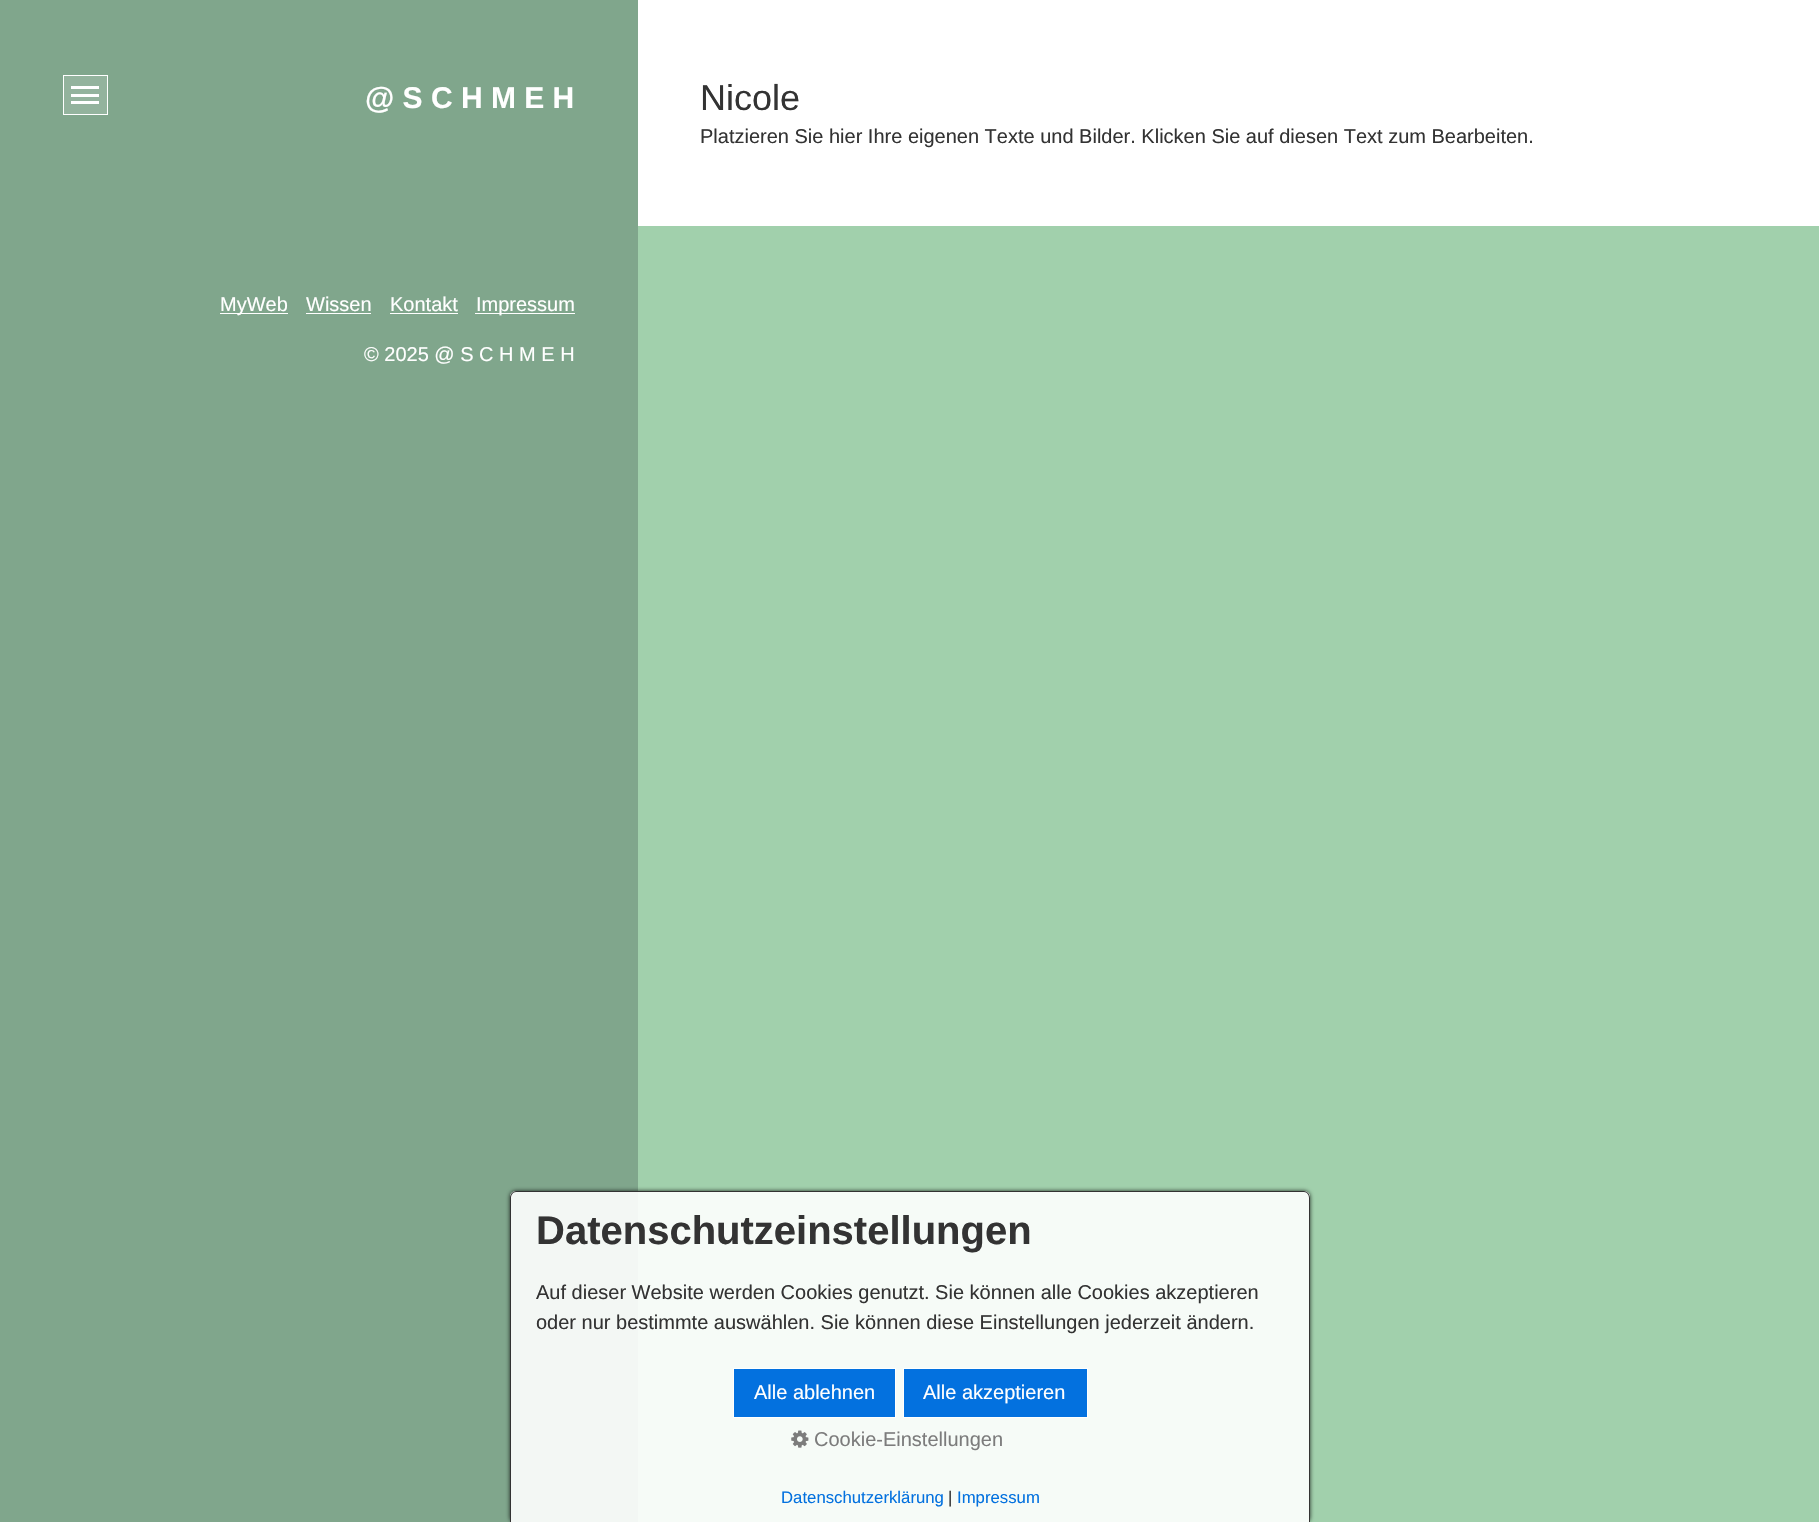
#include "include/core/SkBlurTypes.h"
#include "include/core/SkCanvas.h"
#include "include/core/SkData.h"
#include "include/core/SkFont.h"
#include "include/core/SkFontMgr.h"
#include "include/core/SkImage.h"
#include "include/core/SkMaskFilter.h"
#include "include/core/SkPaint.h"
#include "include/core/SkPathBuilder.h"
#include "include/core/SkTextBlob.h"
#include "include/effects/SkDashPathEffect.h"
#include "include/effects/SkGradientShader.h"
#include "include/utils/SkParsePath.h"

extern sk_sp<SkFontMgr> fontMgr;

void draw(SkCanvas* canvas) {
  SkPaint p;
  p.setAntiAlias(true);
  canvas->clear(SkColorSetRGB(161, 208, 172));
  p.setColor(SkColorSetRGB(128, 166, 140));
  canvas->drawRect(SkRect::MakeLTRB(0, 0, 638, 1522), p);
  p.setColor(SkColorSetRGB(147, 179, 157));
  canvas->drawRect(SkRect::MakeLTRB(63.5f, 75.5f, 107.5f, 114.5f), p);
  p.setStyle(SkPaint::kStroke_Style);
  p.setStrokeWidth(1);
  p.setColor(SK_ColorWHITE);
  canvas->drawRect(SkRect::MakeLTRB(63.5f, 75.5f, 107.5f, 114.5f), p);
  p.setStyle(SkPaint::kFill_Style);
  canvas->drawRect(SkRect::MakeLTRB(71, 86, 99, 89), p);
  canvas->drawRect(SkRect::MakeLTRB(71, 94, 99, 97), p);
  canvas->drawRect(SkRect::MakeLTRB(71, 101, 99, 104), p);
  canvas->drawRect(SkRect::MakeLTRB(638, 0, 1819, 226), p);
  canvas->drawRect(SkRect::MakeLTRB(220, 313, 288, 314), p);
  canvas->drawRect(SkRect::MakeLTRB(306, 313, 371, 314), p);
  canvas->drawRect(SkRect::MakeLTRB(390, 313, 458, 314), p);
  canvas->drawRect(SkRect::MakeLTRB(475, 313, 575, 314), p);
  canvas->save();
  canvas->clipPath(SkPathBuilder(SkPathFillType::kEvenOdd).moveTo(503, 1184).lineTo(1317, 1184).lineTo(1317, 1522).lineTo(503, 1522).close().moveTo(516, 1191).lineTo(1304, 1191).cubicTo(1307.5f, 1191, 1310, 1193.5f, 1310, 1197).lineTo(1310, 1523).lineTo(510, 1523).lineTo(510, 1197).cubicTo(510, 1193.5f, 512.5f, 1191, 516, 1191).close().detach(), true);
  p.setColor(SkColorSetARGB(204, 0, 0, 0));
  p.setMaskFilter(SkMaskFilter::MakeBlur(kNormal_SkBlurStyle, 2));
  canvas->drawRoundRect(SkRect::MakeLTRB(510, 1191, 1310, 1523), 6, 6, p);
  p.setMaskFilter(nullptr);
  canvas->restore();
  p.setColor(SkColorSetARGB(230, 255, 255, 255));
  canvas->drawPath(SkPathBuilder().moveTo(516, 1191).lineTo(1304, 1191).cubicTo(1307.5f, 1191, 1310, 1193.5f, 1310, 1197).lineTo(1310, 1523).lineTo(510, 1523).lineTo(510, 1197).cubicTo(510, 1193.5f, 512.5f, 1191, 516, 1191).close().detach(), p);
  p.setColor(SkColorSetRGB(51, 51, 51));
  canvas->drawPath(SkPathBuilder(SkPathFillType::kEvenOdd).moveTo(516, 1191).lineTo(1304, 1191).cubicTo(1307, 1191, 1310, 1194, 1310, 1198).lineTo(1310, 1522).lineTo(510, 1522).lineTo(510, 1198).cubicTo(510, 1194, 513, 1191, 516, 1191).close().moveTo(516, 1192).lineTo(1304, 1192).cubicTo(1307, 1192, 1309, 1195, 1309, 1198).lineTo(1309, 1522).lineTo(511, 1522).lineTo(511, 1198).cubicTo(511, 1195, 513, 1192, 516, 1192).close().detach(), p);
  p.setColor(SkColorSetRGB(3, 113, 223));
  canvas->drawRect(SkRect::MakeLTRB(733.5f, 1368.5f, 895.5f, 1417.5f), p);
  p.setStyle(SkPaint::kStroke_Style);
  p.setColor(SK_ColorWHITE);
  canvas->drawRect(SkRect::MakeLTRB(733.5f, 1368.5f, 895.5f, 1417.5f), p);
  p.setStyle(SkPaint::kFill_Style);
  p.setColor(SkColorSetRGB(3, 113, 223));
  canvas->drawRect(SkRect::MakeLTRB(903.5f, 1368.5f, 1087.5f, 1417.5f), p);
  p.setStyle(SkPaint::kStroke_Style);
  p.setColor(SK_ColorWHITE);
  canvas->drawRect(SkRect::MakeLTRB(903.5f, 1368.5f, 1087.5f, 1417.5f), p);
  canvas->drawImageRect(SkImages::DeferredFromEncodedData(SkData::MakeFromFileName("images/1.png")), SkRect::MakeLTRB(791, 1430, 809, 1448), SkSamplingOptions());
  SkFont font1(fontMgr->matchFamilyStyle("Liberation Sans", SkFontStyle::Bold()), 30);
  font1.setSubpixel(true);
  p.setStyle(SkPaint::kFill_Style);
  canvas->drawString("@ S C H M E H", 365, 108, font1, p);
  SkFont font2(fontMgr->matchFamilyStyle("Liberation Sans", SkFontStyle::Normal()), 36);
  font2.setSubpixel(true);
  p.setColor(SkColorSetRGB(51, 51, 51));
  canvas->drawString("Nicole", 700, 110, font2, p);
  SkFont font3(fontMgr->matchFamilyStyle("Liberation Sans", SkFontStyle::Normal()), 20);
  font3.setSubpixel(true);
  canvas->drawString("Platzieren Sie hier Ihre eigenen Texte und Bilder. Klicken Sie auf diesen Text zum Bearbeiten.", 700, 143, font3, p);
  p.setColor(SK_ColorWHITE);
  canvas->drawString("MyWeb", 220, 311, font3, p);
  canvas->drawString("Wissen", 306, 311, font3, p);
  canvas->drawString("Kontakt", 390, 311, font3, p);
  canvas->drawString("Impressum", 476, 311, font3, p);
  canvas->drawString("© 2025 @ S C H M E H", 364, 361, font3, p);
  SkFont font4(fontMgr->matchFamilyStyle("Liberation Sans", SkFontStyle::Bold()), 40);
  font4.setSubpixel(true);
  p.setColor(SkColorSetRGB(51, 51, 51));
  canvas->drawString("Datenschutzeinstellungen", 536, 1244, font4, p);
  canvas->drawString("Auf dieser Website werden Cookies genutzt. Sie können alle Cookies akzeptieren", 536, 1299, font3, p);
  canvas->drawString("oder nur bestimmte auswählen. Sie können diese Einstellungen jederzeit ändern.", 536, 1329, font3, p);
  p.setColor(SK_ColorWHITE);
  canvas->drawString("Alle ablehnen", 754, 1399, font3, p);
  canvas->drawString("Alle akzeptieren", 923, 1399, font3, p);
  p.setColor(SkColorSetRGB(124, 124, 124));
  canvas->drawString("Cookie-Einstellungen", 814, 1446, font3, p);
  SkFont font5(fontMgr->matchFamilyStyle("Liberation Sans", SkFontStyle::Normal()), 16.75f);
  font5.setSubpixel(true);
  p.setColor(SkColorSetRGB(3, 113, 223));
  canvas->drawString("Datenschutzerklärung", 781, 1503, font5, p);
  p.setColor(SkColorSetRGB(51, 51, 51));
  canvas->drawString("|", 948, 1503, font5, p);
  p.setColor(SkColorSetRGB(3, 113, 223));
  canvas->drawString("Impressum", 957, 1503, font5, p);
}
